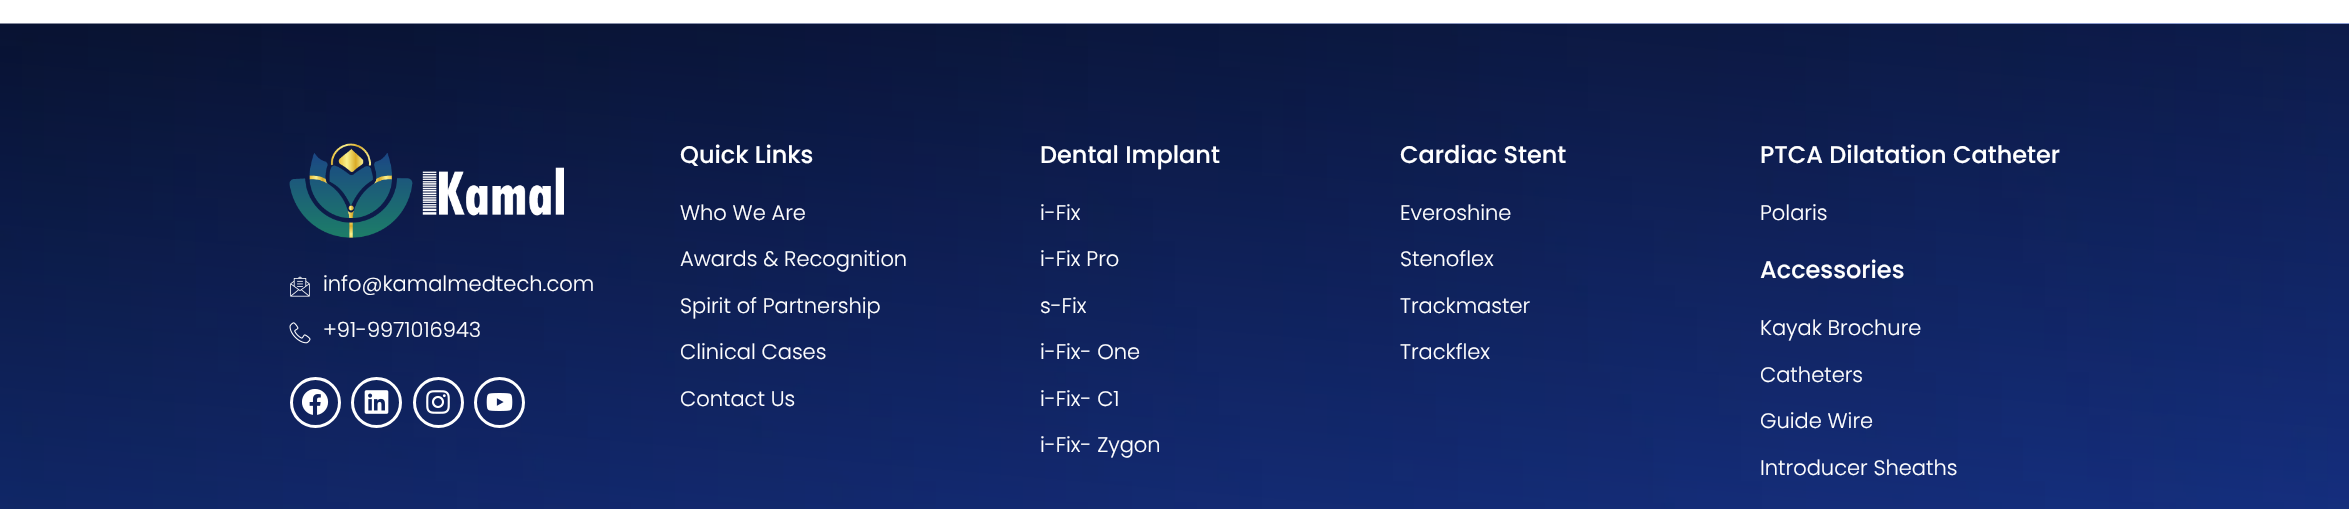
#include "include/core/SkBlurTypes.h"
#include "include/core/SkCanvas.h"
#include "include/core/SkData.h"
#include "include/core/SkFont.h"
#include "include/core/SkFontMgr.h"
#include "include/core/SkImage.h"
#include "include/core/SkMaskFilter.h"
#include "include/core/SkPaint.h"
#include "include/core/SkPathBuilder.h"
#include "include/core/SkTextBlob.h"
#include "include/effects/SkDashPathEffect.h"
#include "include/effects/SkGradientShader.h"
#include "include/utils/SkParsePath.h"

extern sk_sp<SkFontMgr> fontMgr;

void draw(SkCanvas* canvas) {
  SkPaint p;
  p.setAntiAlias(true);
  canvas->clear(SK_ColorWHITE);
  canvas->drawImageRect(SkImages::DeferredFromEncodedData(SkData::MakeFromFileName("images/1.png")), SkRect::MakeLTRB(0, 23, 2349, 509), SkSamplingOptions());
  canvas->drawImageRect(SkImages::DeferredFromEncodedData(SkData::MakeFromFileName("images/2.png")), SkRect::MakeLTRB(289, 143, 564, 238), SkSamplingOptions());
  canvas->drawImageRect(SkImages::DeferredFromEncodedData(SkData::MakeFromFileName("images/3.png")), SkRect::MakeLTRB(290, 276, 310, 297), SkSamplingOptions());
  canvas->drawImageRect(SkImages::DeferredFromEncodedData(SkData::MakeFromFileName("images/4.png")), SkRect::MakeLTRB(289, 322, 311, 344), SkSamplingOptions());
  p.setStyle(SkPaint::kStroke_Style);
  p.setStrokeWidth(3);
  p.setColor(SK_ColorWHITE);
  canvas->drawCircle(315.5f, 402.5f, 24, p);
  canvas->drawImageRect(SkImages::DeferredFromEncodedData(SkData::MakeFromFileName("images/5.png")), SkRect::MakeLTRB(302, 389, 329, 415), SkSamplingOptions());
  canvas->drawCircle(376.5f, 402.5f, 24, p);
  canvas->drawImageRect(SkImages::DeferredFromEncodedData(SkData::MakeFromFileName("images/6.png")), SkRect::MakeLTRB(364, 390, 389, 414), SkSamplingOptions());
  canvas->drawCircle(438.5f, 402.5f, 24, p);
  canvas->drawImageRect(SkImages::DeferredFromEncodedData(SkData::MakeFromFileName("images/7.png")), SkRect::MakeLTRB(426, 390, 450, 414), SkSamplingOptions());
  canvas->drawCircle(499.5f, 402.5f, 24, p);
  canvas->drawImageRect(SkImages::DeferredFromEncodedData(SkData::MakeFromFileName("images/8.png")), SkRect::MakeLTRB(486, 393, 513, 411), SkSamplingOptions());
  SkFont font1(fontMgr->matchFamilyStyle("Poppins", SkFontStyle(300, SkFontStyle::kNormal_Width, SkFontStyle::kUpright_Slant)), 21);
  font1.setSubpixel(true);
  p.setStyle(SkPaint::kFill_Style);
  canvas->drawString("info@kamalmedtech.com", 323, 291, font1, p);
  canvas->drawString("+91-9971016943", 323, 337, font1, p);
  SkFont font2(fontMgr->matchFamilyStyle("Poppins", SkFontStyle(500, SkFontStyle::kNormal_Width, SkFontStyle::kUpright_Slant)), 24);
  font2.setSubpixel(true);
  canvas->drawString("Quick Links", 680, 163, font2, p);
  canvas->drawString("Who We Are", 680, 220, font1, p);
  canvas->drawString("Awards & Recognition", 680, 266, font1, p);
  canvas->drawString("Spirit of Partnership", 680, 313, font1, p);
  canvas->drawString("Clinical Cases", 680, 359, font1, p);
  canvas->drawString("Contact Us", 680, 406, font1, p);
  canvas->drawString("Dental Implant", 1040, 163, font2, p);
  canvas->drawString("i-Fix", 1040, 220, font1, p);
  canvas->drawString("i-Fix Pro", 1040, 266, font1, p);
  canvas->drawString("s-Fix", 1040, 313, font1, p);
  canvas->drawString("i-Fix- One", 1040, 359, font1, p);
  canvas->drawString("i-Fix- C1", 1040, 406, font1, p);
  canvas->drawString("i-Fix- Zygon", 1040, 452, font1, p);
  canvas->drawString("Cardiac Stent", 1400, 163, font2, p);
  canvas->drawString("Everoshine", 1400, 220, font1, p);
  canvas->drawString("Stenoflex", 1400, 266, font1, p);
  canvas->drawString("Trackmaster", 1400, 313, font1, p);
  canvas->drawString("Trackflex", 1400, 359, font1, p);
  canvas->drawString("PTCA Dilatation Catheter", 1760, 163, font2, p);
  canvas->drawString("Polaris", 1760, 220, font1, p);
  canvas->drawString("Accessories", 1760, 278, font2, p);
  canvas->drawString("Kayak Brochure", 1760, 335, font1, p);
  canvas->drawString("Catheters", 1760, 382, font1, p);
  canvas->drawString("Guide Wire", 1760, 428, font1, p);
  canvas->drawString("Introducer Sheaths", 1760, 475, font1, p);
}
